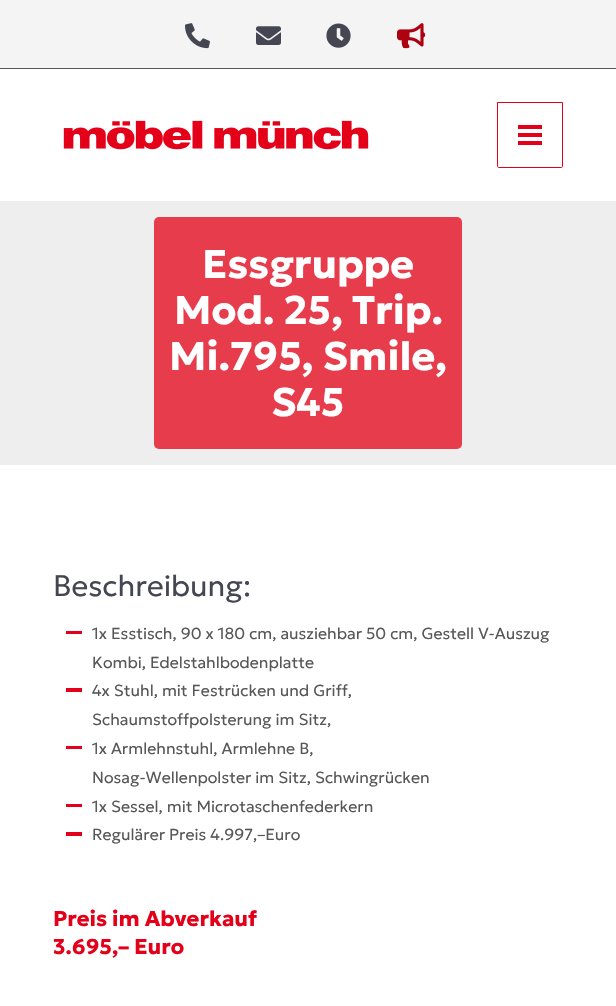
#include "include/core/SkBlurTypes.h"
#include "include/core/SkCanvas.h"
#include "include/core/SkData.h"
#include "include/core/SkFont.h"
#include "include/core/SkFontMgr.h"
#include "include/core/SkImage.h"
#include "include/core/SkMaskFilter.h"
#include "include/core/SkPaint.h"
#include "include/core/SkPathBuilder.h"
#include "include/core/SkTextBlob.h"
#include "include/effects/SkDashPathEffect.h"
#include "include/effects/SkGradientShader.h"
#include "include/utils/SkParsePath.h"

extern sk_sp<SkFontMgr> fontMgr;

void draw(SkCanvas* canvas) {
  SkPaint p;
  p.setAntiAlias(true);
  canvas->clear(SK_ColorWHITE);
  p.setColor(SkColorSetRGB(244, 244, 244));
  canvas->drawRect(SkRect::MakeLTRB(0, 0, 616, 68), p);
  p.setColor(SkColorSetRGB(87, 87, 87));
  canvas->drawRect(SkRect::MakeLTRB(0, 68, 616, 69), p);
  canvas->drawImageRect(SkImages::DeferredFromEncodedData(SkData::MakeFromFileName("images/1.png")), SkRect::MakeLTRB(185, 23, 210, 49), SkSamplingOptions());
  canvas->drawImageRect(SkImages::DeferredFromEncodedData(SkData::MakeFromFileName("images/2.png")), SkRect::MakeLTRB(256, 26, 281, 45), SkSamplingOptions());
  canvas->drawImageRect(SkImages::DeferredFromEncodedData(SkData::MakeFromFileName("images/3.png")), SkRect::MakeLTRB(326, 23, 351, 48), SkSamplingOptions());
  canvas->drawImageRect(SkImages::DeferredFromEncodedData(SkData::MakeFromFileName("images/4.png")), SkRect::MakeLTRB(397, 23, 426, 49), SkSamplingOptions());
  canvas->drawImageRect(SkImages::DeferredFromEncodedData(SkData::MakeFromFileName("images/5.png")), SkRect::MakeLTRB(63, 120, 369, 150), SkSamplingOptions());
  p.setStyle(SkPaint::kStroke_Style);
  p.setStrokeWidth(1);
  p.setColor(SkColorSetRGB(227, 0, 24));
  canvas->drawPath(SkPathBuilder().moveTo(497.5f, 102.5f).lineTo(562.5f, 102.5f).lineTo(562.5f, 166).cubicTo(562.5f, 167, 562, 167.5f, 561, 167.5f).lineTo(499, 167.5f).cubicTo(498, 167.5f, 497.5f, 167, 497.5f, 166).close().detach(), p);
  p.setStyle(SkPaint::kFill_Style);
  canvas->drawRect(SkRect::MakeLTRB(518, 125, 542, 129), p);
  canvas->drawRect(SkRect::MakeLTRB(518, 133, 542, 137), p);
  canvas->drawRect(SkRect::MakeLTRB(518, 141, 542, 145), p);
  p.setColor(SkColorSetRGB(238, 238, 238));
  canvas->drawRect(SkRect::MakeLTRB(0, 201, 616, 465), p);
  p.setColor(SkColorSetRGB(230, 60, 76));
  canvas->drawRoundRect(SkRect::MakeLTRB(154, 217, 462, 449), 5, 5, p);
  p.setColor(SkColorSetRGB(227, 0, 24));
  canvas->drawRect(SkRect::MakeLTRB(66, 631, 82, 634), p);
  canvas->drawRect(SkRect::MakeLTRB(66, 688, 82, 692), p);
  canvas->drawRect(SkRect::MakeLTRB(66, 746, 82, 749), p);
  canvas->drawRect(SkRect::MakeLTRB(66, 804, 82, 807), p);
  canvas->drawRect(SkRect::MakeLTRB(66, 832, 82, 836), p);
  SkFont font1(fontMgr->matchFamilyStyle("Geologica", SkFontStyle::Bold()), 40);
  font1.setSubpixel(true);
  p.setColor(SK_ColorWHITE);
  canvas->drawString("Essgruppe", 202, 278, font1, p);
  canvas->drawString("Mod. 25, Trip.", 174, 324, font1, p);
  canvas->drawString("Mi.795, Smile,", 169, 370, font1, p);
  canvas->drawString("S45", 271, 416, font1, p);
  SkFont font2(fontMgr->matchFamilyStyle("Geologica", SkFontStyle(300, SkFontStyle::kNormal_Width, SkFontStyle::kUpright_Slant)), 29.5f);
  font2.setSubpixel(true);
  p.setColor(SkColorSetRGB(68, 71, 81));
  canvas->drawString("Beschreibung:", 53, 596, font2, p);
  SkFont font3(fontMgr->matchFamilyStyle("Geologica", SkFontStyle(300, SkFontStyle::kNormal_Width, SkFontStyle::kUpright_Slant)), 16);
  font3.setSubpixel(true);
  p.setColor(SkColorSetRGB(87, 87, 87));
  canvas->drawString("1x Esstisch, 90 x 180 cm, ausziehbar 50 cm, Gestell V-Auszug", 92, 639, font3, p);
  canvas->drawString("Kombi, Edelstahlbodenplatte", 92, 668, font3, p);
  canvas->drawString("4x Stuhl, mit Festrücken und Griff,", 92, 696, font3, p);
  canvas->drawString("Schaumstoffpolsterung im Sitz,", 92, 725, font3, p);
  canvas->drawString("1x Armlehnstuhl, Armlehne B,", 92, 754, font3, p);
  canvas->drawString("Nosag-Wellenpolster im Sitz, Schwingrücken", 92, 783, font3, p);
  canvas->drawString("1x Sessel, mit Microtaschenfederkern", 92, 812, font3, p);
  canvas->drawString("Regulärer Preis 4.997,–Euro", 92, 840, font3, p);
  SkFont font4(fontMgr->matchFamilyStyle("Geologica", SkFontStyle::Bold()), 21.5f);
  font4.setSubpixel(true);
  p.setColor(SkColorSetRGB(227, 0, 24));
  canvas->drawString("Preis im Abverkauf", 53, 926, font4, p);
  canvas->drawString("3.695,– Euro", 53, 954, font4, p);
}
